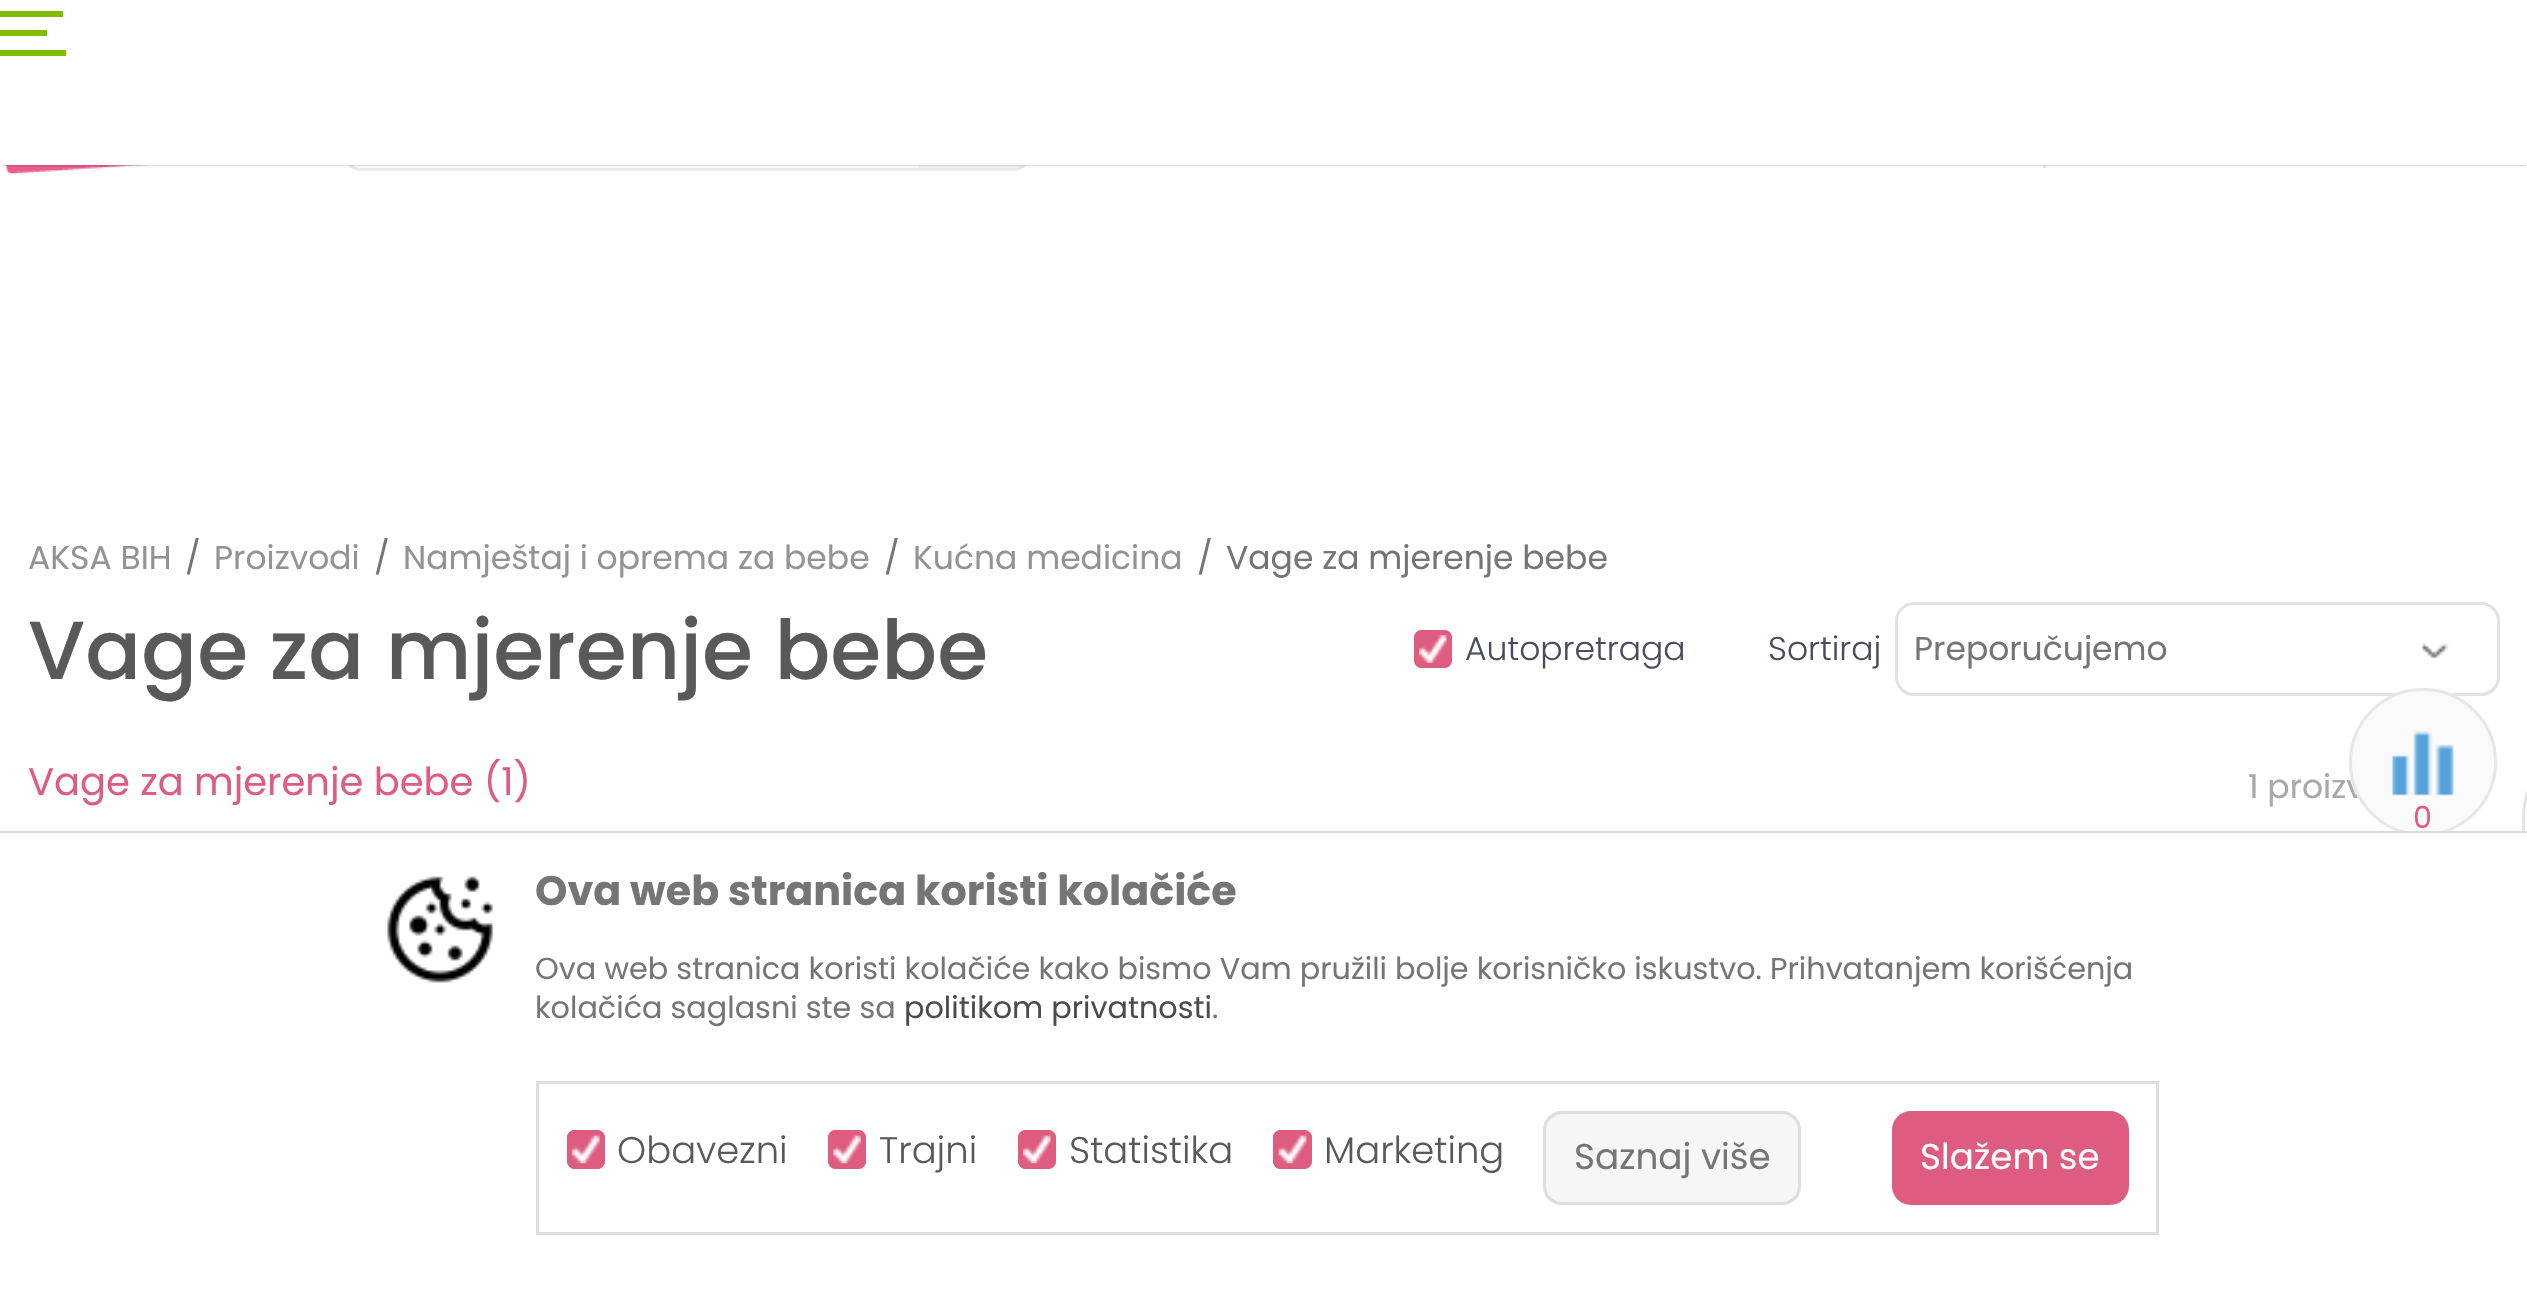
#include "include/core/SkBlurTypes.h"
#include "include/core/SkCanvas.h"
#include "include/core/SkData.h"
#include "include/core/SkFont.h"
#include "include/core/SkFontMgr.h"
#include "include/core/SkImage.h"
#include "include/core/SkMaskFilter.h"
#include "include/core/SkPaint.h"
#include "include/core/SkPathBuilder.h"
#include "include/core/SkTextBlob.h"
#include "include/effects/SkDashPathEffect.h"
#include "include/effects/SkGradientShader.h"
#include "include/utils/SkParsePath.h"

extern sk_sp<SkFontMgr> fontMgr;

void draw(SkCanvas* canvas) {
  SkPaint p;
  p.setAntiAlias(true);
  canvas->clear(SK_ColorWHITE);
  canvas->drawImageRect(SkImages::DeferredFromEncodedData(SkData::MakeFromFileName("images/1.png")), SkRect::MakeLTRB(5, 165, 149, 174), SkSamplingOptions());
  p.setStyle(SkPaint::kStroke_Style);
  p.setStrokeWidth(3);
  p.setColor(SkColorSetRGB(234, 234, 234));
  canvas->drawRoundRect(SkRect::MakeLTRB(345.5f, 56.5f, 1029.5f, 169.5f), 15.5f, 15.5f, p);
  p.setStyle(SkPaint::kFill_Style);
  p.setColor(SkColorSetRGB(244, 244, 244));
  canvas->drawPath(SkPathBuilder().moveTo(919, 58).lineTo(1012, 58).cubicTo(1021.5f, 58, 1029, 65.5f, 1029, 75).lineTo(1029, 151).cubicTo(1029, 160.5f, 1021.5f, 168, 1012, 168).lineTo(919, 168).close().detach(), p);
  p.setColor(SkColorSetRGB(234, 234, 234));
  canvas->drawRect(SkRect::MakeLTRB(2043, 165, 2046, 168), p);
  p.setColor(SkColorSetARGB(77, 0, 0, 0));
  p.setMaskFilter(SkMaskFilter::MakeBlur(kNormal_SkBlurStyle, 1.5f));
  canvas->drawRect(SkRect::MakeLTRB(0, 0, 2527, 165), p);
  p.setMaskFilter(nullptr);
  p.setColor(SK_ColorWHITE);
  canvas->drawRect(SkRect::MakeLTRB(0, 0, 2527, 165), p);
  p.setColor(SkColorSetRGB(128, 188, 0));
  canvas->drawRect(SkRect::MakeLTRB(0, 30, 47, 36), p);
  canvas->drawRect(SkRect::MakeLTRB(0, 11, 63, 17), p);
  canvas->drawRect(SkRect::MakeLTRB(0, 50, 66, 56), p);
  p.setColor(SkColorSetRGB(221, 92, 128));
  canvas->drawRoundRect(SkRect::MakeLTRB(1414, 630, 1452, 668), 8, 8, p);
  canvas->drawImageRect(SkImages::DeferredFromEncodedData(SkData::MakeFromFileName("images/2.png")), SkRect::MakeLTRB(1419, 635, 1447, 663), SkSamplingOptions());
  p.setStyle(SkPaint::kStroke_Style);
  canvas->drawRoundRect(SkRect::MakeLTRB(1415.5f, 631.5f, 1450.5f, 666.5f), 6.5f, 6.5f, p);
  canvas->drawImageRect(SkImages::DeferredFromEncodedData(SkData::MakeFromFileName("images/3.png")), SkRect::MakeLTRB(2422, 642, 2449, 659), SkSamplingOptions());
  p.setColor(SkColorSetRGB(226, 226, 226));
  canvas->drawRoundRect(SkRect::MakeLTRB(1896.5f, 603.5f, 2498.5f, 694.5f), 17.5f, 17.5f, p);
  p.setColor(SkColorSetRGB(228, 228, 228));
  canvas->drawPath(SkPathBuilder().moveTo(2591, 749.5f).lineTo(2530, 749.5f).cubicTo(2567.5f, 749.5f, 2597.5f, 779.5f, 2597.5f, 817).lineTo(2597.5f, 1071.5f).lineTo(2523.5f, 1071.5f).lineTo(2523.5f, 817).cubicTo(2523.5f, 779.5f, 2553.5f, 749.5f, 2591, 749.5f).close().detach(), p);
  SkFont font1(fontMgr->matchFamilyStyle("Poppins", SkFontStyle::Normal()), 33);
  font1.setSubpixel(true);
  p.setStyle(SkPaint::kFill_Style);
  p.setColor(SkColorSetRGB(147, 147, 147));
  canvas->drawString("AKSA BIH", 28, 569, font1, p);
  p.setColor(SkColorSetRGB(117, 117, 117));
  canvas->drawString("/", 185, 569, font1, p);
  p.setColor(SkColorSetRGB(147, 147, 147));
  canvas->drawString("Proizvodi", 214, 569, font1, p);
  p.setColor(SkColorSetRGB(117, 117, 117));
  canvas->drawString("/", 374, 569, font1, p);
  p.setColor(SkColorSetRGB(147, 147, 147));
  canvas->drawString("Namještaj i oprema za bebe", 403, 569, font1, p);
  p.setColor(SkColorSetRGB(117, 117, 117));
  canvas->drawString("/", 884, 569, font1, p);
  p.setColor(SkColorSetRGB(147, 147, 147));
  canvas->drawString("Kućna medicina", 913, 569, font1, p);
  p.setColor(SkColorSetRGB(117, 117, 117));
  canvas->drawString("/", 1197, 569, font1, p);
  canvas->drawString("Vage za mjerenje bebe", 1226, 569, font1, p);
  SkFont font2(fontMgr->matchFamilyStyle("Poppins", SkFontStyle(500, SkFontStyle::kNormal_Width, SkFontStyle::kUpright_Slant)), 82.5f);
  font2.setSubpixel(true);
  p.setColor(SkColorSetRGB(89, 89, 89));
  canvas->drawString("Vage za mjerenje bebe", 28, 679, font2, p);
  SkFont font3(fontMgr->matchFamilyStyle("Poppins", SkFontStyle(300, SkFontStyle::kNormal_Width, SkFontStyle::kUpright_Slant)), 33);
  font3.setSubpixel(true);
  p.setColor(SkColorSetRGB(74, 75, 92));
  canvas->drawString("Autopretraga", 1465, 660, font3, p);
  canvas->drawString("Sortiraj", 1768, 660, font3, p);
  p.setColor(SkColorSetRGB(117, 117, 117));
  canvas->drawString("Preporučujemo", 1914, 660, font1, p);
  SkFont font4(fontMgr->matchFamilyStyle("Poppins", SkFontStyle::Normal()), 38.5f);
  font4.setSubpixel(true);
  p.setColor(SkColorSetRGB(221, 92, 128));
  canvas->drawString("Vage za mjerenje bebe (1)", 28, 795, font4, p);
  p.setColor(SkColorSetRGB(168, 168, 168));
  canvas->drawString("1 proizv", 2248, 798, font1, p);
  p.setColor(SkColorSetRGB(250, 250, 250));
  canvas->drawCircle(2423, 762, 74, p);
  canvas->drawImageRect(SkImages::DeferredFromEncodedData(SkData::MakeFromFileName("images/4.png")), SkRect::MakeLTRB(2392, 731, 2454, 796), SkSamplingOptions());
  p.setStyle(SkPaint::kStroke_Style);
  p.setColor(SkColorSetRGB(231, 231, 231));
  canvas->drawCircle(2423, 762, 72.5f, p);
  SkFont font5(fontMgr->matchFamilyStyle("Poppins", SkFontStyle::Normal()), 30.25f);
  font5.setSubpixel(true);
  p.setStyle(SkPaint::kFill_Style);
  p.setColor(SkColorSetRGB(221, 92, 128));
  canvas->drawString("0", 2413, 828, font5, p);
  p.setStyle(SkPaint::kStroke_Style);
  p.setColor(SkColorSetRGB(217, 217, 217));
  canvas->drawRect(SkRect::MakeLTRB(-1.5f, 832.5f, 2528.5f, 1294.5f), p);
  p.setStyle(SkPaint::kFill_Style);
  p.setColor(SK_ColorWHITE);
  canvas->drawRect(SkRect::MakeLTRB(0, 833, 2527, 1073), p);
  canvas->drawImageRect(SkImages::DeferredFromEncodedData(SkData::MakeFromFileName("images/5.png")), SkRect::MakeLTRB(387, 876, 494, 983), SkSamplingOptions());
  SkFont font6(fontMgr->matchFamilyStyle("Poppins", SkFontStyle::Bold()), 41.25f);
  font6.setSubpixel(true);
  p.setColor(SkColorSetRGB(117, 117, 117));
  canvas->drawString("Ova web stranica koristi kolačiće", 535, 905, font6, p);
  canvas->drawString("Ova web stranica koristi kolačiće kako bismo Vam pružili bolje korisničko iskustvo. Prihvatanjem korišćenja", 535, 979, font5, p);
  canvas->drawString("kolačića saglasni ste sa", 535, 1018, font5, p);
  p.setColor(SkColorSetRGB(76, 76, 76));
  canvas->drawString("politikom privatnosti", 904, 1018, font5, p);
  p.setColor(SkColorSetRGB(117, 117, 117));
  canvas->drawString(".", 1212, 1018, font5, p);
  p.setStyle(SkPaint::kStroke_Style);
  p.setColor(SkColorSetRGB(222, 222, 222));
  canvas->drawRect(SkRect::MakeLTRB(537.5f, 1082.5f, 2157.5f, 1233.5f), p);
  p.setStyle(SkPaint::kFill_Style);
  p.setColor(SkColorSetRGB(221, 92, 128));
  canvas->drawRoundRect(SkRect::MakeLTRB(567, 1130, 605, 1169), 8, 8, p);
  canvas->drawImageRect(SkImages::DeferredFromEncodedData(SkData::MakeFromFileName("images/6.png")), SkRect::MakeLTRB(571, 1135, 600, 1164), SkSamplingOptions());
  p.setStyle(SkPaint::kStroke_Style);
  canvas->drawRoundRect(SkRect::MakeLTRB(568.5f, 1131.5f, 603.5f, 1167.5f), 6.5f, 6.5f, p);
  SkFont font7(fontMgr->matchFamilyStyle("Poppins", SkFontStyle(300, SkFontStyle::kNormal_Width, SkFontStyle::kUpright_Slant)), 37);
  font7.setSubpixel(true);
  p.setStyle(SkPaint::kFill_Style);
  p.setColor(SkColorSetRGB(89, 89, 89));
  canvas->drawString("Obavezni", 617, 1163, font7, p);
  p.setColor(SkColorSetRGB(221, 92, 128));
  canvas->drawRoundRect(SkRect::MakeLTRB(828, 1130, 866, 1169), 8, 8, p);
  canvas->drawImageRect(SkImages::DeferredFromEncodedData(SkData::MakeFromFileName("images/7.png")), SkRect::MakeLTRB(833, 1135, 861, 1164), SkSamplingOptions());
  p.setStyle(SkPaint::kStroke_Style);
  canvas->drawRoundRect(SkRect::MakeLTRB(829.5f, 1131.5f, 864.5f, 1167.5f), 6.5f, 6.5f, p);
  p.setStyle(SkPaint::kFill_Style);
  p.setColor(SkColorSetRGB(89, 89, 89));
  canvas->drawString("Trajni", 879, 1163, font7, p);
  p.setColor(SkColorSetRGB(221, 92, 128));
  canvas->drawRoundRect(SkRect::MakeLTRB(1018, 1130, 1056, 1169), 8, 8, p);
  canvas->drawImageRect(SkImages::DeferredFromEncodedData(SkData::MakeFromFileName("images/8.png")), SkRect::MakeLTRB(1023, 1135, 1051, 1164), SkSamplingOptions());
  p.setStyle(SkPaint::kStroke_Style);
  canvas->drawRoundRect(SkRect::MakeLTRB(1019.5f, 1131.5f, 1054.5f, 1167.5f), 6.5f, 6.5f, p);
  p.setStyle(SkPaint::kFill_Style);
  p.setColor(SkColorSetRGB(89, 89, 89));
  canvas->drawString("Statistika", 1069, 1163, font7, p);
  p.setColor(SkColorSetRGB(221, 92, 128));
  canvas->drawRoundRect(SkRect::MakeLTRB(1273, 1130, 1312, 1169), 8, 8, p);
  canvas->drawImageRect(SkImages::DeferredFromEncodedData(SkData::MakeFromFileName("images/9.png")), SkRect::MakeLTRB(1278, 1135, 1307, 1164), SkSamplingOptions());
  p.setStyle(SkPaint::kStroke_Style);
  canvas->drawRoundRect(SkRect::MakeLTRB(1274.5f, 1131.5f, 1310.5f, 1167.5f), 6.5f, 6.5f, p);
  p.setStyle(SkPaint::kFill_Style);
  p.setColor(SkColorSetRGB(89, 89, 89));
  canvas->drawString("Marketing", 1324, 1163, font7, p);
  p.setColor(SkColorSetRGB(246, 246, 246));
  canvas->drawRoundRect(SkRect::MakeLTRB(1544.5f, 1112.5f, 1799.5f, 1203.5f), 17.5f, 17.5f, p);
  p.setStyle(SkPaint::kStroke_Style);
  p.setColor(SkColorSetRGB(222, 222, 222));
  canvas->drawRoundRect(SkRect::MakeLTRB(1544.5f, 1112.5f, 1799.5f, 1203.5f), 17.5f, 17.5f, p);
  SkFont font8(fontMgr->matchFamilyStyle("Poppins", SkFontStyle::Normal()), 35.75f);
  font8.setSubpixel(true);
  p.setStyle(SkPaint::kFill_Style);
  p.setColor(SkColorSetRGB(117, 117, 117));
  canvas->drawString("Saznaj više", 1574, 1169, font8, p);
  p.setColor(SkColorSetRGB(221, 92, 128));
  canvas->drawRoundRect(SkRect::MakeLTRB(1892, 1111, 2129, 1205), 19, 19, p);
  p.setColor(SK_ColorWHITE);
  canvas->drawString("Slažem se", 1920, 1169, font8, p);
}
